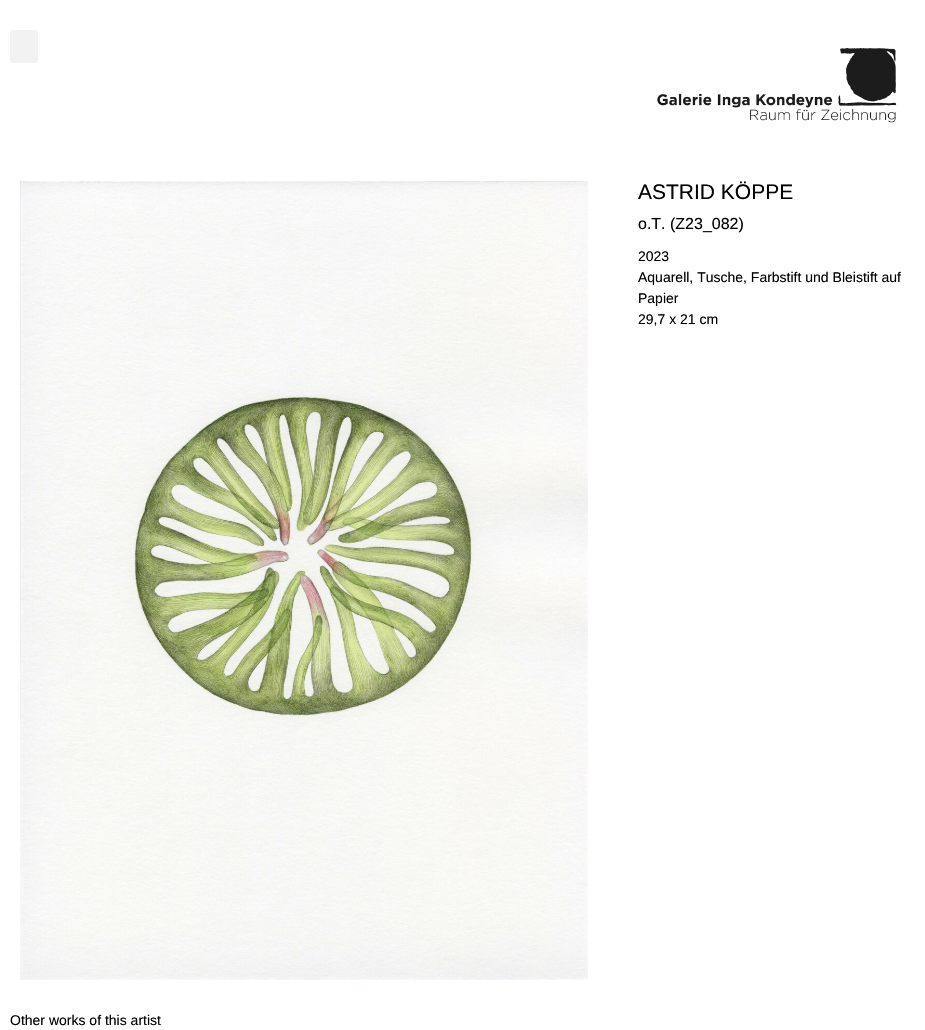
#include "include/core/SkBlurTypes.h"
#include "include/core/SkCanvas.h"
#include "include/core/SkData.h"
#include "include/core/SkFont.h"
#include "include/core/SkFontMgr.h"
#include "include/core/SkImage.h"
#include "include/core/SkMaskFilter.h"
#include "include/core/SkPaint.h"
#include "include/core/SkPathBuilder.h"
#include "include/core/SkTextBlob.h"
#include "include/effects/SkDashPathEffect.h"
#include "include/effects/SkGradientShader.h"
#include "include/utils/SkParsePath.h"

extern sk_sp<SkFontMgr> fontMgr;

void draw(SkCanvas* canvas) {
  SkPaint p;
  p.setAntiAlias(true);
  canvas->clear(SK_ColorWHITE);
  p.setColor(SkColorSetRGB(242, 242, 242));
  canvas->drawRoundRect(SkRect::MakeLTRB(10, 30, 38, 63), 3, 3, p);
  canvas->drawImageRect(SkImages::DeferredFromEncodedData(SkData::MakeFromFileName("images/1.png")), SkRect::MakeLTRB(657, 48, 897, 123), SkSamplingOptions());
  canvas->drawImageRect(SkImages::DeferredFromEncodedData(SkData::MakeFromFileName("images/2.png")), SkRect::MakeLTRB(20, 181, 588, 980), SkSamplingOptions());
  SkFont font1(fontMgr->matchFamilyStyle("Liberation Sans", SkFontStyle::Normal()), 21);
  font1.setSubpixel(true);
  p.setColor(SK_ColorBLACK);
  canvas->drawString("ASTRID KÖPPE", 638, 199, font1, p);
  SkFont font2(fontMgr->matchFamilyStyle("Liberation Sans", SkFontStyle::Normal()), 16);
  font2.setSubpixel(true);
  canvas->drawString("o.T. (Z23_082)", 638, 229, font2, p);
  SkFont font3(fontMgr->matchFamilyStyle("Liberation Sans", SkFontStyle::Normal()), 14);
  font3.setSubpixel(true);
  canvas->drawString("2023", 638, 261, font3, p);
  canvas->drawString("Aquarell, Tusche, Farbstift und Bleistift auf", 638, 282, font3, p);
  canvas->drawString("Papier", 638, 303, font3, p);
  canvas->drawString("29,7 x 21 cm", 638, 324, font3, p);
  canvas->drawString("Other works of this artist", 10, 1025, font3, p);
}
